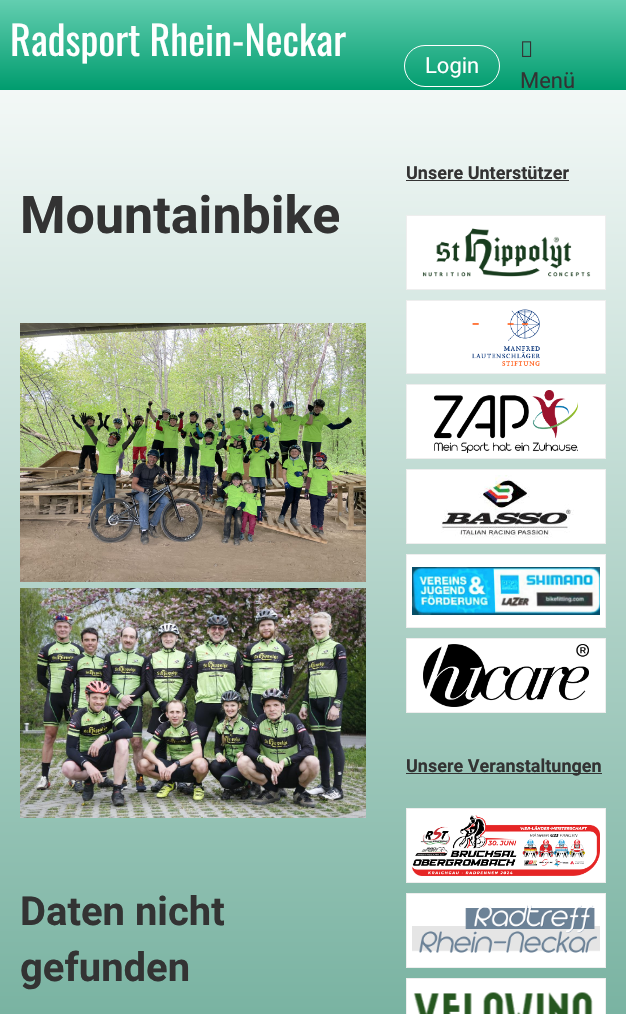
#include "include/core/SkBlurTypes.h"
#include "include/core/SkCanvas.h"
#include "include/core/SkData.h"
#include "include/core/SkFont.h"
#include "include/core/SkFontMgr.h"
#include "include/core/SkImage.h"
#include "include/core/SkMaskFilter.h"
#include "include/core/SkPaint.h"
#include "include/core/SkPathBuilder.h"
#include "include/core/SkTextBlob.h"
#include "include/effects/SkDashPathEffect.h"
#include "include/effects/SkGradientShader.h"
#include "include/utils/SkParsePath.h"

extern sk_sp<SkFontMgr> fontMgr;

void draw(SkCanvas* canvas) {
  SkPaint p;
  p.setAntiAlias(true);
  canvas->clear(SK_ColorWHITE);
  {
    const SkColor colors[] = {SkColorSetRGB(0, 156, 110), SkColorSetRGB(99, 206, 176)};
    const float stops[] = {0, 1};
    const SkPoint ends[] = {{313, 90}, {313, 0}};
    p.setShader(SkGradientShader::MakeLinear(ends, colors, stops, 2, SkTileMode::kClamp));
    p.setAlpha(255);
  }
  canvas->drawRect(SkRect::MakeLTRB(0, 0, 626, 90), p);
  p.setStyle(SkPaint::kStroke_Style);
  p.setStrokeWidth(1);
  p.setShader(nullptr);
  p.setColor(SK_ColorWHITE);
  canvas->drawRoundRect(SkRect::MakeLTRB(404.5f, 45.5f, 499.5f, 86.5f), 20.5f, 20.5f, p);
  canvas->drawImageRect(SkImages::DeferredFromEncodedData(SkData::MakeFromFileName("images/1.png")), SkRect::MakeLTRB(522, 41, 532, 57), SkSamplingOptions());
  p.setStyle(SkPaint::kFill_Style);
  {
    const SkColor colors[] = {SK_ColorWHITE, SkColorSetRGB(0, 110, 77)};
    const float stops[] = {0, 1};
    const SkPoint ends[] = {{313, 0}, {313, 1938}};
    p.setShader(SkGradientShader::MakeLinear(ends, colors, stops, 2, SkTileMode::kClamp));
    p.setAlpha(255);
  }
  canvas->drawRect(SkRect::MakeLTRB(0, 90, 626, 1014), p);
  canvas->drawImageRect(SkImages::DeferredFromEncodedData(SkData::MakeFromFileName("images/2.png")), SkRect::MakeLTRB(20, 323, 366, 582), SkSamplingOptions());
  canvas->drawImageRect(SkImages::DeferredFromEncodedData(SkData::MakeFromFileName("images/3.png")), SkRect::MakeLTRB(20, 588, 366, 818), SkSamplingOptions());
  p.setShader(nullptr);
  p.setColor(SkColorSetRGB(51, 51, 51));
  canvas->drawRect(SkRect::MakeLTRB(406, 180, 569, 181), p);
  p.setColor(SK_ColorWHITE);
  canvas->drawRect(SkRect::MakeLTRB(406.5f, 215.5f, 605.5f, 289.5f), p);
  p.setStyle(SkPaint::kStroke_Style);
  p.setColor(SkColorSetRGB(238, 238, 238));
  canvas->drawRect(SkRect::MakeLTRB(406.5f, 215.5f, 605.5f, 289.5f), p);
  canvas->drawImageRect(SkImages::DeferredFromEncodedData(SkData::MakeFromFileName("images/4.png")), SkRect::MakeLTRB(422, 228, 591, 277), SkSamplingOptions());
  p.setStyle(SkPaint::kFill_Style);
  p.setColor(SK_ColorWHITE);
  canvas->drawRect(SkRect::MakeLTRB(406.5f, 300.5f, 605.5f, 373.5f), p);
  p.setStyle(SkPaint::kStroke_Style);
  p.setColor(SkColorSetRGB(238, 238, 238));
  canvas->drawRect(SkRect::MakeLTRB(406.5f, 300.5f, 605.5f, 373.5f), p);
  canvas->drawImageRect(SkImages::DeferredFromEncodedData(SkData::MakeFromFileName("images/5.png")), SkRect::MakeLTRB(472, 309, 540, 366), SkSamplingOptions());
  p.setStyle(SkPaint::kFill_Style);
  p.setColor(SK_ColorWHITE);
  canvas->drawRect(SkRect::MakeLTRB(406.5f, 384.5f, 605.5f, 458.5f), p);
  p.setStyle(SkPaint::kStroke_Style);
  p.setColor(SkColorSetRGB(238, 238, 238));
  canvas->drawRect(SkRect::MakeLTRB(406.5f, 384.5f, 605.5f, 458.5f), p);
  canvas->drawImageRect(SkImages::DeferredFromEncodedData(SkData::MakeFromFileName("images/6.png")), SkRect::MakeLTRB(434, 390, 578, 453), SkSamplingOptions());
  p.setStyle(SkPaint::kFill_Style);
  p.setColor(SK_ColorWHITE);
  canvas->drawRect(SkRect::MakeLTRB(406.5f, 469.5f, 605.5f, 543.5f), p);
  p.setStyle(SkPaint::kStroke_Style);
  p.setColor(SkColorSetRGB(238, 238, 238));
  canvas->drawRect(SkRect::MakeLTRB(406.5f, 469.5f, 605.5f, 543.5f), p);
  canvas->drawImageRect(SkImages::DeferredFromEncodedData(SkData::MakeFromFileName("images/7.png")), SkRect::MakeLTRB(441, 475, 574, 538), SkSamplingOptions());
  p.setStyle(SkPaint::kFill_Style);
  p.setColor(SK_ColorWHITE);
  canvas->drawRect(SkRect::MakeLTRB(406.5f, 554.5f, 605.5f, 627.5f), p);
  p.setStyle(SkPaint::kStroke_Style);
  p.setColor(SkColorSetRGB(238, 238, 238));
  canvas->drawRect(SkRect::MakeLTRB(406.5f, 554.5f, 605.5f, 627.5f), p);
  canvas->drawImageRect(SkImages::DeferredFromEncodedData(SkData::MakeFromFileName("images/8.png")), SkRect::MakeLTRB(412, 567, 600, 615), SkSamplingOptions());
  p.setStyle(SkPaint::kFill_Style);
  p.setColor(SK_ColorWHITE);
  canvas->drawRect(SkRect::MakeLTRB(406.5f, 638.5f, 605.5f, 712.5f), p);
  p.setStyle(SkPaint::kStroke_Style);
  p.setColor(SkColorSetRGB(238, 238, 238));
  canvas->drawRect(SkRect::MakeLTRB(406.5f, 638.5f, 605.5f, 712.5f), p);
  canvas->drawImageRect(SkImages::DeferredFromEncodedData(SkData::MakeFromFileName("images/9.png")), SkRect::MakeLTRB(423, 644, 589, 707), SkSamplingOptions());
  p.setStyle(SkPaint::kFill_Style);
  p.setColor(SkColorSetRGB(51, 51, 51));
  canvas->drawRect(SkRect::MakeLTRB(406, 773, 602, 774), p);
  p.setColor(SK_ColorWHITE);
  canvas->drawRect(SkRect::MakeLTRB(406.5f, 808.5f, 605.5f, 882.5f), p);
  p.setStyle(SkPaint::kStroke_Style);
  p.setColor(SkColorSetRGB(238, 238, 238));
  canvas->drawRect(SkRect::MakeLTRB(406.5f, 808.5f, 605.5f, 882.5f), p);
  canvas->drawImageRect(SkImages::DeferredFromEncodedData(SkData::MakeFromFileName("images/10.png")), SkRect::MakeLTRB(412, 815, 600, 876), SkSamplingOptions());
  p.setStyle(SkPaint::kFill_Style);
  p.setColor(SK_ColorWHITE);
  canvas->drawRect(SkRect::MakeLTRB(406.5f, 893.5f, 605.5f, 967.5f), p);
  p.setStyle(SkPaint::kStroke_Style);
  p.setColor(SkColorSetRGB(238, 238, 238));
  canvas->drawRect(SkRect::MakeLTRB(406.5f, 893.5f, 605.5f, 967.5f), p);
  canvas->drawImageRect(SkImages::DeferredFromEncodedData(SkData::MakeFromFileName("images/11.png")), SkRect::MakeLTRB(412, 905, 600, 953), SkSamplingOptions());
  p.setStyle(SkPaint::kFill_Style);
  p.setColor(SK_ColorWHITE);
  canvas->drawRect(SkRect::MakeLTRB(406.5f, 978.5f, 605.5f, 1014.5f), p);
  p.setStyle(SkPaint::kStroke_Style);
  p.setColor(SkColorSetRGB(238, 238, 238));
  canvas->drawRect(SkRect::MakeLTRB(406.5f, 978.5f, 605.5f, 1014.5f), p);
  canvas->drawImageRect(SkImages::DeferredFromEncodedData(SkData::MakeFromFileName("images/12.png")), SkRect::MakeLTRB(413, 992, 593, 1014), SkSamplingOptions());
  SkFont font1(fontMgr->matchFamilyStyle("Oswald", SkFontStyle::Normal()), 40);
  font1.setSubpixel(true);
  p.setStyle(SkPaint::kFill_Style);
  p.setColor(SK_ColorWHITE);
  canvas->drawString("Radsport Rhein-Neckar", 10, 56, font1, p);
  SkFont font2(fontMgr->matchFamilyStyle("Roboto", SkFontStyle::Normal()), 22);
  font2.setSubpixel(true);
  canvas->drawString("Login", 425, 73, font2, p);
  p.setColor(SkColorSetRGB(51, 51, 51));
  canvas->drawString("Menü", 520, 88, font2, p);
  SkFont font3(fontMgr->matchFamilyStyle("Roboto", SkFontStyle::Bold()), 52);
  font3.setSubpixel(true);
  canvas->drawString("Mountainbike", 20, 233, font3, p);
  SkFont font4(fontMgr->matchFamilyStyle("Roboto", SkFontStyle::Bold()), 40);
  font4.setSubpixel(true);
  canvas->drawString("Daten nicht", 20, 925, font4, p);
  canvas->drawString("gefunden", 20, 981, font4, p);
  SkFont font5(fontMgr->matchFamilyStyle("Roboto", SkFontStyle::Bold()), 18);
  font5.setSubpixel(true);
  canvas->drawString("Unsere Unterstützer", 406, 179, font5, p);
  canvas->drawString("Unsere Veranstaltungen", 406, 772, font5, p);
}
